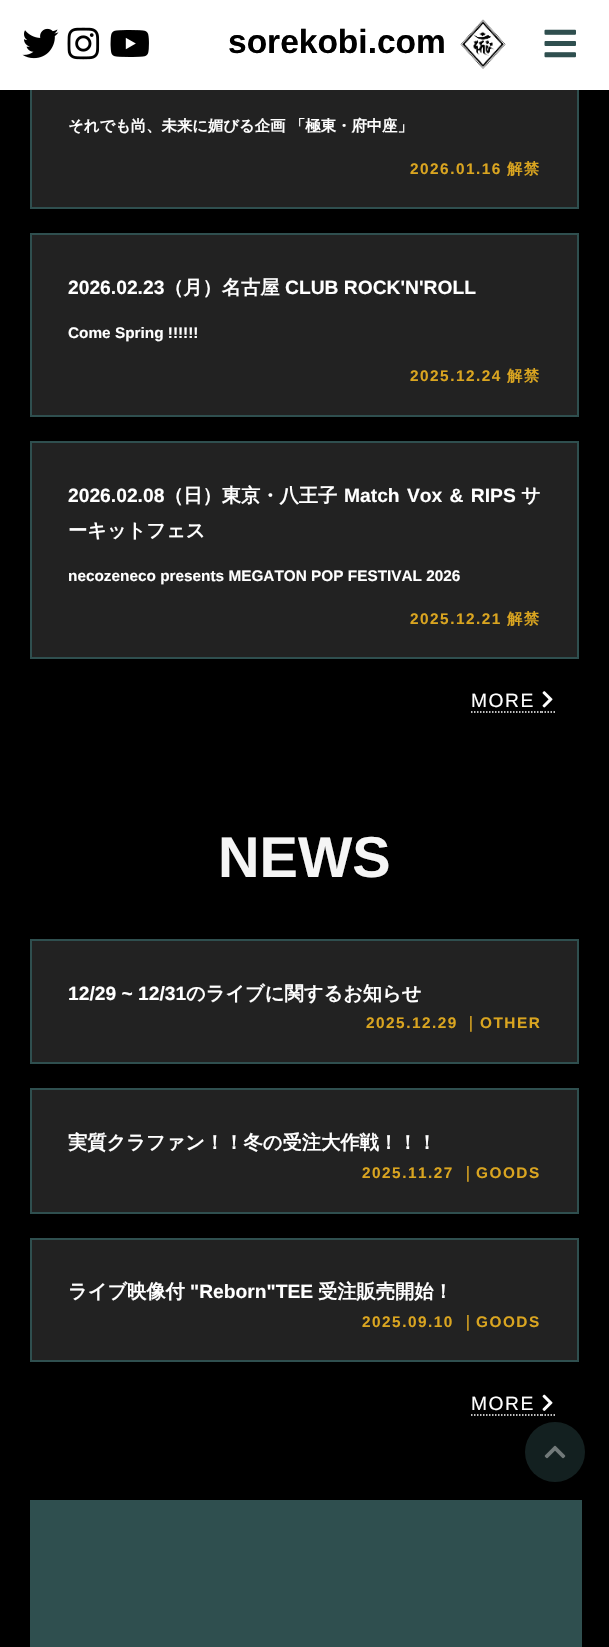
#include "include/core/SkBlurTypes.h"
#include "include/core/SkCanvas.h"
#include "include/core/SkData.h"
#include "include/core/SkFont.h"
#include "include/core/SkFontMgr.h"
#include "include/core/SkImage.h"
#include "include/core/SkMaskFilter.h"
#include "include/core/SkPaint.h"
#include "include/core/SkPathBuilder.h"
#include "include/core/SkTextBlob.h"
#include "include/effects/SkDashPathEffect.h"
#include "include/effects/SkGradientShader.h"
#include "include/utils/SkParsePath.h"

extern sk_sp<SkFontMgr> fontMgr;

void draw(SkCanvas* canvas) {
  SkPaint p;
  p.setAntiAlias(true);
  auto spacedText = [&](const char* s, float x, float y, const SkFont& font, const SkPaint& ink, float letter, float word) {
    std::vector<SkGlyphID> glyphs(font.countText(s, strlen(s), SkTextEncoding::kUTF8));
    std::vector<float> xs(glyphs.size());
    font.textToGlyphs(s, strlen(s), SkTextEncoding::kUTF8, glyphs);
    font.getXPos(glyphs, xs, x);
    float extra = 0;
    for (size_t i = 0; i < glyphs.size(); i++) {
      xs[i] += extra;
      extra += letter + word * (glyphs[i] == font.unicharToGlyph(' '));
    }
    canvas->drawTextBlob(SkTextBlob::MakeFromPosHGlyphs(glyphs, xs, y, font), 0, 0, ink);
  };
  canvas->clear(SK_ColorBLACK);
  p.setColor(SkColorSetRGB(34, 34, 34));
  canvas->drawRect(SkRect::MakeLTRB(32, 90, 577, 207), p);
  p.setStyle(SkPaint::kStroke_Style);
  p.setStrokeWidth(2);
  p.setColor(SkColorSetRGB(47, 79, 79));
  canvas->drawRect(SkRect::MakeLTRB(31, 27, 578, 208), p);
  p.setStyle(SkPaint::kFill_Style);
  p.setColor(SK_ColorWHITE);
  canvas->drawRect(SkRect::MakeLTRB(0, 0, 609, 90), p);
  canvas->drawImageRect(SkImages::DeferredFromEncodedData(SkData::MakeFromFileName("images/1.png")), SkRect::MakeLTRB(22, 28, 59, 59), SkSamplingOptions());
  canvas->drawImageRect(SkImages::DeferredFromEncodedData(SkData::MakeFromFileName("images/2.png")), SkRect::MakeLTRB(67, 27, 100, 60), SkSamplingOptions());
  canvas->drawImageRect(SkImages::DeferredFromEncodedData(SkData::MakeFromFileName("images/3.png")), SkRect::MakeLTRB(110, 30, 149, 57), SkSamplingOptions());
  canvas->drawImageRect(SkImages::DeferredFromEncodedData(SkData::MakeFromFileName("images/4.png")), SkRect::MakeLTRB(460, 19, 506, 69), SkSamplingOptions());
  canvas->drawImageRect(SkImages::DeferredFromEncodedData(SkData::MakeFromFileName("images/5.png")), SkRect::MakeLTRB(544, 29, 576, 58), SkSamplingOptions());
  p.setColor(SkColorSetRGB(34, 34, 34));
  canvas->drawRect(SkRect::MakeLTRB(31, 234, 578, 416), p);
  p.setStyle(SkPaint::kStroke_Style);
  p.setColor(SkColorSetRGB(47, 79, 79));
  canvas->drawRect(SkRect::MakeLTRB(31, 234, 578, 416), p);
  p.setStyle(SkPaint::kFill_Style);
  p.setColor(SkColorSetRGB(34, 34, 34));
  canvas->drawRect(SkRect::MakeLTRB(31, 442, 578, 658), p);
  p.setStyle(SkPaint::kStroke_Style);
  p.setColor(SkColorSetRGB(47, 79, 79));
  canvas->drawRect(SkRect::MakeLTRB(31, 442, 578, 658), p);
  p.setStrokeWidth(1.5f);
  p.setColor(SK_ColorWHITE);
  p.setPathEffect(SkDashPathEffect::Make({{1.5f, 1.5f}}, 0));
  canvas->drawPath(SkPathBuilder().moveTo(471, 712).lineTo(541.5f, 712).detach(), p);
  p.setPathEffect(nullptr);
  p.setPathEffect(SkDashPathEffect::Make({{1.5f, 1.5f}}, 0));
  canvas->drawPath(SkPathBuilder().moveTo(541.5f, 712).lineTo(555, 712).detach(), p);
  p.setPathEffect(nullptr);
  canvas->drawImageRect(SkImages::DeferredFromEncodedData(SkData::MakeFromFileName("images/6.png")), SkRect::MakeLTRB(542, 691, 553, 708), SkSamplingOptions());
  p.setStyle(SkPaint::kFill_Style);
  p.setColor(SkColorSetRGB(34, 34, 34));
  canvas->drawRect(SkRect::MakeLTRB(31, 940, 578, 1063), p);
  p.setStyle(SkPaint::kStroke_Style);
  p.setStrokeWidth(2);
  p.setColor(SkColorSetRGB(47, 79, 79));
  canvas->drawRect(SkRect::MakeLTRB(31, 940, 578, 1063), p);
  p.setStyle(SkPaint::kFill_Style);
  p.setColor(SkColorSetRGB(34, 34, 34));
  canvas->drawRect(SkRect::MakeLTRB(31, 1089, 578, 1213), p);
  p.setStyle(SkPaint::kStroke_Style);
  p.setColor(SkColorSetRGB(47, 79, 79));
  canvas->drawRect(SkRect::MakeLTRB(31, 1089, 578, 1213), p);
  p.setStyle(SkPaint::kFill_Style);
  p.setColor(SkColorSetRGB(34, 34, 34));
  canvas->drawRect(SkRect::MakeLTRB(31, 1239, 578, 1361), p);
  p.setStyle(SkPaint::kStroke_Style);
  p.setColor(SkColorSetRGB(47, 79, 79));
  canvas->drawRect(SkRect::MakeLTRB(31, 1239, 578, 1361), p);
  p.setStrokeWidth(1.5f);
  p.setColor(SK_ColorWHITE);
  p.setPathEffect(SkDashPathEffect::Make({{1.5f, 1.5f}}, 0));
  canvas->drawPath(SkPathBuilder().moveTo(471, 1415).lineTo(541.5f, 1415).detach(), p);
  p.setPathEffect(nullptr);
  p.setPathEffect(SkDashPathEffect::Make({{1.5f, 1.5f}}, 0));
  canvas->drawPath(SkPathBuilder().moveTo(541.5f, 1415).lineTo(555, 1415).detach(), p);
  p.setPathEffect(nullptr);
  canvas->drawImageRect(SkImages::DeferredFromEncodedData(SkData::MakeFromFileName("images/7.png")), SkRect::MakeLTRB(542, 1394, 553, 1411), SkSamplingOptions());
  p.setStyle(SkPaint::kFill_Style);
  p.setColor(SkColorSetRGB(47, 79, 79));
  canvas->drawRect(SkRect::MakeLTRB(30, 1500, 582, 1647), p);
  p.setColor(SkColorSetRGB(19, 32, 32));
  canvas->drawCircle(555, 1452, 30, p);
  canvas->drawImageRect(SkImages::DeferredFromEncodedData(SkData::MakeFromFileName("images/8.png")), SkRect::MakeLTRB(544, 1445, 566, 1459), SkSamplingOptions());
  SkFont font1(fontMgr->matchFamilyStyle("Liberation Sans", SkFontStyle::Bold()), 33.5f);
  font1.setSubpixel(true);
  p.setColor(SK_ColorBLACK);
  canvas->drawString("sorekobi.com", 228, 53, font1, p);
  SkFont font2(fontMgr->matchFamilyStyle("WenQuanYi Zen Hei", SkFontStyle::Bold()), 15.35f);
  font2.setSubpixel(true);
  p.setColor(SK_ColorWHITE);
  canvas->drawString("それでも尚、未来に媚びる企画 「極東・府中座」", 68, 131, font2, p);
  SkFont font3(fontMgr->matchFamilyStyle("Liberation Sans", SkFontStyle::Bold()), 15.35f);
  font3.setSubpixel(true);
  p.setColor(SkColorSetRGB(218, 165, 32));
  spacedText("2026.01.16", 410, 174, font3, p, 1.5f, 0);
  spacedText("解禁", 507, 174, font2, p, 1.5f, 0);
  SkFont font4(fontMgr->matchFamilyStyle("Liberation Sans", SkFontStyle::Bold()), 19.25f);
  font4.setSubpixel(true);
  p.setColor(SK_ColorWHITE);
  canvas->drawString("2026.02.23", 68, 294, font4, p);
  SkFont font5(fontMgr->matchFamilyStyle("WenQuanYi Zen Hei", SkFontStyle::Bold()), 19.25f);
  font5.setSubpixel(true);
  canvas->drawString("（月）名古屋", 164, 294, font5, p);
  canvas->drawString("CLUB ROCK'N'ROLL", 285, 294, font4, p);
  canvas->drawString("Come Spring !!!!!!", 68, 338, font3, p);
  p.setColor(SkColorSetRGB(218, 165, 32));
  spacedText("2025.12.24", 410, 381, font3, p, 1.5f, 0);
  spacedText("解禁", 507, 381, font2, p, 1.5f, 0);
  p.setColor(SK_ColorWHITE);
  canvas->drawString("2026.02.08", 68, 502, font4, p);
  canvas->drawString("（日）東京・八王子", 164, 502, font5, p);
  spacedText("Match Vox & RIPS", 344, 502, font4, p, 0, 2);
  canvas->drawString("サ", 521, 502, font5, p);
  canvas->drawString("ーキットフェス", 68, 537, font5, p);
  canvas->drawString("necozeneco presents MEGATON POP FESTIVAL 2026", 68, 581, font3, p);
  p.setColor(SkColorSetRGB(218, 165, 32));
  spacedText("2025.12.21", 410, 624, font3, p, 1.5f, 0);
  spacedText("解禁", 507, 624, font2, p, 1.5f, 0);
  SkFont font6(fontMgr->matchFamilyStyle("Liberation Sans", SkFontStyle::Normal()), 19.25f);
  font6.setSubpixel(true);
  p.setColor(SK_ColorWHITE);
  spacedText("MORE", 471, 707, font6, p, 1.5f, 0);
  SkFont font7(fontMgr->matchFamilyStyle("Liberation Sans", SkFontStyle::Bold()), 57.5f);
  font7.setSubpixel(true);
  p.setColor(SkColorSetRGB(245, 245, 245));
  canvas->drawString("NEWS", 218, 877, font7, p);
  p.setColor(SK_ColorWHITE);
  canvas->drawString("12/29 ~ 12/31", 68, 1000, font4, p);
  canvas->drawString("のライブに関するお知らせ", 186, 1000, font5, p);
  p.setColor(SkColorSetRGB(218, 165, 32));
  spacedText("2025.12.29", 366, 1028, font3, p, 1.5f, 0);
  spacedText("｜", 463, 1028, font2, p, 1.5f, 0);
  spacedText("OTHER", 480, 1028, font3, p, 1.5f, 0);
  p.setColor(SK_ColorWHITE);
  canvas->drawString("実質クラファン！！冬の受注大作戦！！！", 68, 1149, font5, p);
  p.setColor(SkColorSetRGB(218, 165, 32));
  spacedText("2025.11.27", 362, 1178, font3, p, 1.5f, 0);
  spacedText("｜", 460, 1178, font2, p, 1.5f, 0);
  spacedText("GOODS", 476, 1178, font3, p, 1.5f, 0);
  p.setColor(SK_ColorWHITE);
  canvas->drawString("ライブ映像付", 68, 1298, font5, p);
  canvas->drawString("\"Reborn\"TEE", 190, 1298, font4, p);
  canvas->drawString("受注販売開始！", 318, 1298, font5, p);
  p.setColor(SkColorSetRGB(218, 165, 32));
  spacedText("2025.09.10", 362, 1327, font3, p, 1.5f, 0);
  spacedText("｜", 460, 1327, font2, p, 1.5f, 0);
  spacedText("GOODS", 476, 1327, font3, p, 1.5f, 0);
  p.setColor(SK_ColorWHITE);
  spacedText("MORE", 471, 1410, font6, p, 1.5f, 0);
}
